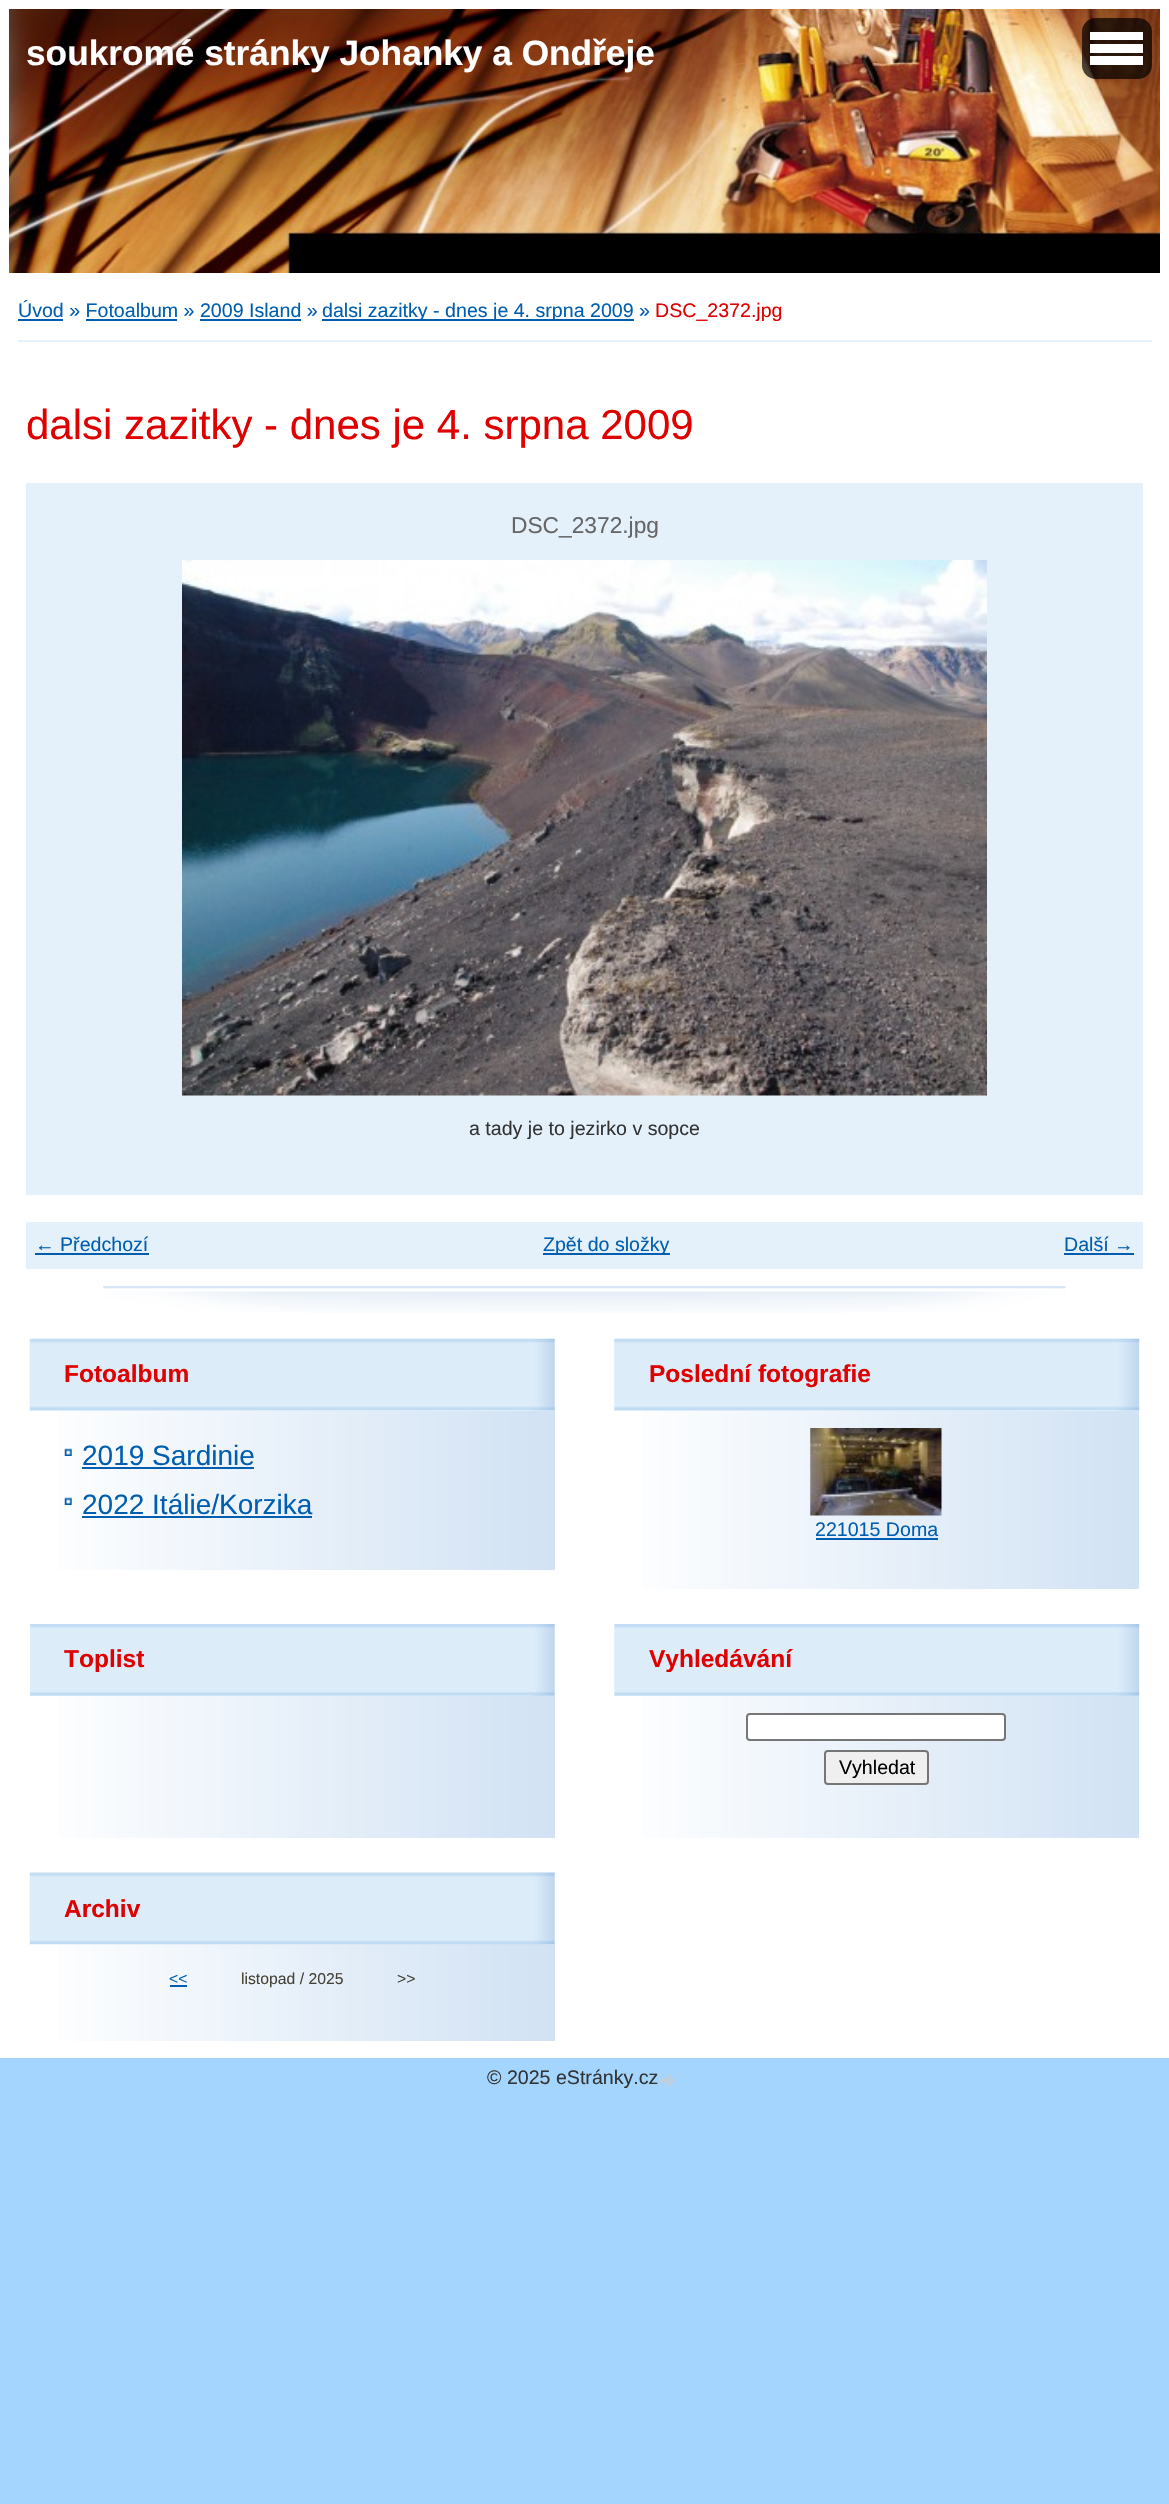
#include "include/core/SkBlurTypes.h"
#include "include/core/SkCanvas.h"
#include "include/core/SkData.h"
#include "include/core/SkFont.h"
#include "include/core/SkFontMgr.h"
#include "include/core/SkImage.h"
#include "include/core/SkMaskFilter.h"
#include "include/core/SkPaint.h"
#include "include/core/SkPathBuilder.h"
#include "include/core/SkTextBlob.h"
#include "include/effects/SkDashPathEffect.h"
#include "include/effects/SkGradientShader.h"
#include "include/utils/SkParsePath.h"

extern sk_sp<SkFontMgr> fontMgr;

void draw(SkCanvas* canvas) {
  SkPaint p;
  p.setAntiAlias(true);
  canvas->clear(SkColorSetRGB(164, 213, 255));
  canvas->drawImageRect(SkImages::DeferredFromEncodedData(SkData::MakeFromFileName("images/1.png")), SkRect::MakeLTRB(9, 9, 1160, 273), SkSamplingOptions());
  p.setStyle(SkPaint::kStroke_Style);
  p.setStrokeWidth(9);
  p.setColor(SK_ColorWHITE);
  canvas->drawRect(SkRect::MakeLTRB(4.5f, 4.5f, 1164.5f, 277.5f), p);
  p.setStyle(SkPaint::kFill_Style);
  p.setColor(SkColorSetARGB(179, 0, 0, 0));
  canvas->drawRoundRect(SkRect::MakeLTRB(1082, 18, 1152, 79), 14, 14, p);
  p.setColor(SK_ColorWHITE);
  canvas->drawRect(SkRect::MakeLTRB(1090, 32, 1143, 40), p);
  canvas->drawRect(SkRect::MakeLTRB(1090, 44, 1143, 53), p);
  canvas->drawRect(SkRect::MakeLTRB(1090, 56, 1143, 65), p);
  canvas->drawRect(SkRect::MakeLTRB(0, 282, 1169, 2058), p);
  p.setColor(SkColorSetRGB(228, 240, 250));
  canvas->drawRect(SkRect::MakeLTRB(18, 340, 1152, 342), p);
  p.setColor(SkColorSetRGB(0, 94, 177));
  canvas->drawRect(SkRect::MakeLTRB(18, 319, 63, 321), p);
  canvas->drawRect(SkRect::MakeLTRB(322, 319, 634, 321), p);
  canvas->drawRect(SkRect::MakeLTRB(86, 319, 177, 321), p);
  canvas->drawRect(SkRect::MakeLTRB(200, 319, 301, 321), p);
  canvas->drawImageRect(SkImages::DeferredFromEncodedData(SkData::MakeFromFileName("images/2.png")), SkRect::MakeLTRB(103, 1286, 1066, 1313), SkSamplingOptions());
  p.setColor(SkColorSetRGB(228, 240, 250));
  canvas->drawRect(SkRect::MakeLTRB(26, 483, 1143, 1195), p);
  canvas->drawImageRect(SkImages::DeferredFromEncodedData(SkData::MakeFromFileName("images/3.png")), SkRect::MakeLTRB(182, 560, 987, 1096), SkSamplingOptions());
  canvas->drawRect(SkRect::MakeLTRB(26, 1222, 1143, 1269), p);
  p.setColor(SkColorSetRGB(0, 94, 177));
  canvas->drawRect(SkRect::MakeLTRB(35, 1253, 149, 1255), p);
  canvas->drawRect(SkRect::MakeLTRB(543, 1253, 670, 1255), p);
  canvas->drawRect(SkRect::MakeLTRB(1064, 1253, 1134, 1255), p);
  canvas->drawImageRect(SkImages::DeferredFromEncodedData(SkData::MakeFromFileName("images/4.png")), SkRect::MakeLTRB(29, 1338, 555, 1411), SkSamplingOptions());
  canvas->drawImageRect(SkImages::DeferredFromEncodedData(SkData::MakeFromFileName("images/5.png")), SkRect::MakeLTRB(532, 1338, 555, 1411), SkSamplingOptions());
  {
    const SkColor colors[] = {SK_ColorWHITE, SkColorSetRGB(209, 226, 244)};
    const float stops[] = {0, 1};
    const SkPoint ends[] = {{30, 1490}, {555, 1490}};
    p.setShader(SkGradientShader::MakeLinear(ends, colors, stops, 2, SkTileMode::kClamp));
    p.setAlpha(255);
  }
  canvas->drawRect(SkRect::MakeLTRB(59, 1411, 555, 1570), p);
  canvas->drawImageRect(SkImages::DeferredFromEncodedData(SkData::MakeFromFileName("images/6.png")), SkRect::MakeLTRB(64, 1448, 72, 1456), SkSamplingOptions());
  p.setShader(nullptr);
  p.setColor(SkColorSetRGB(0, 94, 177));
  canvas->drawRect(SkRect::MakeLTRB(82, 1467, 254, 1469), p);
  canvas->drawImageRect(SkImages::DeferredFromEncodedData(SkData::MakeFromFileName("images/6.png")), SkRect::MakeLTRB(64, 1497, 72, 1505), SkSamplingOptions());
  canvas->drawRect(SkRect::MakeLTRB(82, 1516, 312, 1518), p);
  canvas->drawImageRect(SkImages::DeferredFromEncodedData(SkData::MakeFromFileName("images/7.png")), SkRect::MakeLTRB(614, 1338, 1140, 1411), SkSamplingOptions());
  canvas->drawImageRect(SkImages::DeferredFromEncodedData(SkData::MakeFromFileName("images/8.png")), SkRect::MakeLTRB(1117, 1338, 1140, 1411), SkSamplingOptions());
  {
    const SkColor colors[] = {SK_ColorWHITE, SkColorSetRGB(209, 226, 244)};
    const float stops[] = {0, 1};
    const SkPoint ends[] = {{614, 1500}, {1139, 1500}};
    p.setShader(SkGradientShader::MakeLinear(ends, colors, stops, 2, SkTileMode::kClamp));
    p.setAlpha(255);
  }
  canvas->drawRect(SkRect::MakeLTRB(643, 1411, 1139, 1589), p);
  canvas->drawImageRect(SkImages::DeferredFromEncodedData(SkData::MakeFromFileName("images/9.png")), SkRect::MakeLTRB(810, 1428, 942, 1516), SkSamplingOptions());
  p.setShader(nullptr);
  p.setColor(SkColorSetRGB(0, 94, 177));
  canvas->drawRect(SkRect::MakeLTRB(816, 1538, 938, 1540), p);
  canvas->drawImageRect(SkImages::DeferredFromEncodedData(SkData::MakeFromFileName("images/10.png")), SkRect::MakeLTRB(29, 1624, 555, 1696), SkSamplingOptions());
  canvas->drawImageRect(SkImages::DeferredFromEncodedData(SkData::MakeFromFileName("images/11.png")), SkRect::MakeLTRB(532, 1624, 555, 1696), SkSamplingOptions());
  {
    const SkColor colors[] = {SK_ColorWHITE, SkColorSetRGB(209, 226, 244)};
    const float stops[] = {0, 1};
    const SkPoint ends[] = {{30, 1767}, {555, 1767}};
    p.setShader(SkGradientShader::MakeLinear(ends, colors, stops, 2, SkTileMode::kClamp));
    p.setAlpha(255);
  }
  canvas->drawRect(SkRect::MakeLTRB(59, 1696, 555, 1838), p);
  canvas->drawImageRect(SkImages::DeferredFromEncodedData(SkData::MakeFromFileName("images/12.png")), SkRect::MakeLTRB(614, 1624, 1140, 1696), SkSamplingOptions());
  canvas->drawImageRect(SkImages::DeferredFromEncodedData(SkData::MakeFromFileName("images/13.png")), SkRect::MakeLTRB(1116, 1624, 1140, 1696), SkSamplingOptions());
  {
    const SkColor colors[] = {SK_ColorWHITE, SkColorSetRGB(209, 226, 244)};
    const float stops[] = {0, 1};
    const SkPoint ends[] = {{614, 1767}, {1139, 1767}};
    p.setShader(SkGradientShader::MakeLinear(ends, colors, stops, 2, SkTileMode::kClamp));
    p.setAlpha(255);
  }
  canvas->drawRect(SkRect::MakeLTRB(643, 1696, 1139, 1838), p);
  p.setShader(nullptr);
  p.setColor(SK_ColorWHITE);
  canvas->drawRoundRect(SkRect::MakeLTRB(747, 1714, 1005, 1740), 3, 3, p);
  p.setStyle(SkPaint::kStroke_Style);
  p.setStrokeWidth(2);
  p.setColor(SkColorSetRGB(118, 118, 118));
  canvas->drawRoundRect(SkRect::MakeLTRB(747, 1714, 1005, 1740), 3, 3, p);
  p.setStyle(SkPaint::kFill_Style);
  p.setColor(SkColorSetRGB(239, 239, 239));
  canvas->drawRoundRect(SkRect::MakeLTRB(825, 1751, 928, 1784), 3, 3, p);
  p.setStyle(SkPaint::kStroke_Style);
  p.setColor(SkColorSetRGB(118, 118, 118));
  canvas->drawRoundRect(SkRect::MakeLTRB(825, 1751, 928, 1784), 3, 3, p);
  p.setStyle(SkPaint::kFill_Style);
  {
    const SkColor colors[] = {SK_ColorWHITE, SkColorSetRGB(209, 226, 244)};
    const float stops[] = {0, 1};
    const SkPoint ends[] = {{30, 1992}, {555, 1992}};
    p.setShader(SkGradientShader::MakeLinear(ends, colors, stops, 2, SkTileMode::kClamp));
    p.setAlpha(255);
  }
  canvas->drawRect(SkRect::MakeLTRB(59, 1944, 555, 2041), p);
  canvas->drawImageRect(SkImages::DeferredFromEncodedData(SkData::MakeFromFileName("images/14.png")), SkRect::MakeLTRB(29, 1872, 555, 1945), SkSamplingOptions());
  canvas->drawImageRect(SkImages::DeferredFromEncodedData(SkData::MakeFromFileName("images/15.png")), SkRect::MakeLTRB(532, 1872, 555, 1944), SkSamplingOptions());
  p.setShader(nullptr);
  p.setColor(SkColorSetRGB(0, 94, 177));
  canvas->drawRect(SkRect::MakeLTRB(170, 1985, 187, 1987), p);
  canvas->drawImageRect(SkImages::DeferredFromEncodedData(SkData::MakeFromFileName("images/16.png")), SkRect::MakeLTRB(659, 2073, 676, 2088), SkSamplingOptions());
  SkFont font1(fontMgr->matchFamilyStyle("Liberation Sans", SkFontStyle::Bold()), 35.25f);
  font1.setSubpixel(true);
  p.setColor(SK_ColorWHITE);
  canvas->drawString("soukromé stránky Johanky a Ondřeje", 26, 65, font1, p);
  SkFont font2(fontMgr->matchFamilyStyle("Liberation Sans", SkFontStyle::Normal()), 19.6f);
  font2.setSubpixel(true);
  p.setColor(SkColorSetRGB(0, 94, 177));
  canvas->drawString("Úvod » Fotoalbum » 2009 Island »", 18, 317, font2, p);
  canvas->drawString("dalsi zazitky - dnes je 4. srpna 2009", 322, 317, font2, p);
  canvas->drawString("»", 639, 317, font2, p);
  p.setColor(SkColorSetRGB(223, 0, 0));
  canvas->drawString("DSC_2372.jpg", 655, 317, font2, p);
  SkFont font3(fontMgr->matchFamilyStyle("Liberation Sans", SkFontStyle::Normal()), 42);
  font3.setSubpixel(true);
  canvas->drawString("dalsi zazitky - dnes je 4. srpna 2009", 26, 439, font3, p);
  SkFont font4(fontMgr->matchFamilyStyle("Liberation Sans", SkFontStyle::Normal()), 22.75f);
  font4.setSubpixel(true);
  p.setColor(SkColorSetRGB(102, 102, 102));
  canvas->drawString("DSC_2372.jpg", 511, 533, font4, p);
  p.setColor(SkColorSetRGB(51, 51, 51));
  canvas->drawString("a tady je to jezirko v sopce", 469, 1135, font2, p);
  p.setColor(SkColorSetRGB(0, 94, 177));
  canvas->drawString("← Předchozí", 35, 1251, font2, p);
  canvas->drawString("Zpět do složky", 543, 1251, font2, p);
  canvas->drawString("Další →", 1064, 1251, font2, p);
  SkFont font5(fontMgr->matchFamilyStyle("Liberation Sans", SkFontStyle::Bold()), 24.5f);
  font5.setSubpixel(true);
  p.setColor(SkColorSetRGB(223, 0, 0));
  canvas->drawString("Fotoalbum", 64, 1382, font5, p);
  SkFont font6(fontMgr->matchFamilyStyle("Liberation Sans", SkFontStyle::Normal()), 28);
  font6.setSubpixel(true);
  p.setColor(SkColorSetRGB(0, 94, 177));
  canvas->drawString("2019 Sardinie", 82, 1465, font6, p);
  canvas->drawString("2022 Itálie/Korzika", 82, 1514, font6, p);
  p.setColor(SkColorSetRGB(223, 0, 0));
  canvas->drawString("Poslední fotografie", 649, 1382, font5, p);
  p.setColor(SkColorSetRGB(0, 94, 177));
  canvas->drawString("221015 Doma", 815, 1536, font2, p);
  p.setColor(SkColorSetRGB(223, 0, 0));
  canvas->drawString("Toplist", 64, 1667, font5, p);
  canvas->drawString("Vyhledávání", 649, 1667, font5, p);
  p.setColor(SK_ColorBLACK);
  canvas->drawString("Vyhledat", 839, 1774, font2, p);
  p.setColor(SkColorSetRGB(223, 0, 0));
  canvas->drawString("Archiv", 64, 1917, font5, p);
  SkFont font7(fontMgr->matchFamilyStyle("Liberation Sans", SkFontStyle::Normal()), 15.75f);
  font7.setSubpixel(true);
  p.setColor(SkColorSetRGB(0, 94, 177));
  canvas->drawString("<<", 169, 1984, font7, p);
  p.setColor(SkColorSetRGB(70, 66, 53));
  canvas->drawString("listopad / 2025", 241, 1984, font7, p);
  canvas->drawString(">>", 397, 1984, font7, p);
  p.setColor(SkColorSetRGB(51, 51, 51));
  canvas->drawString("© 2025 eStránky.cz", 487, 2084, font2, p);
}
